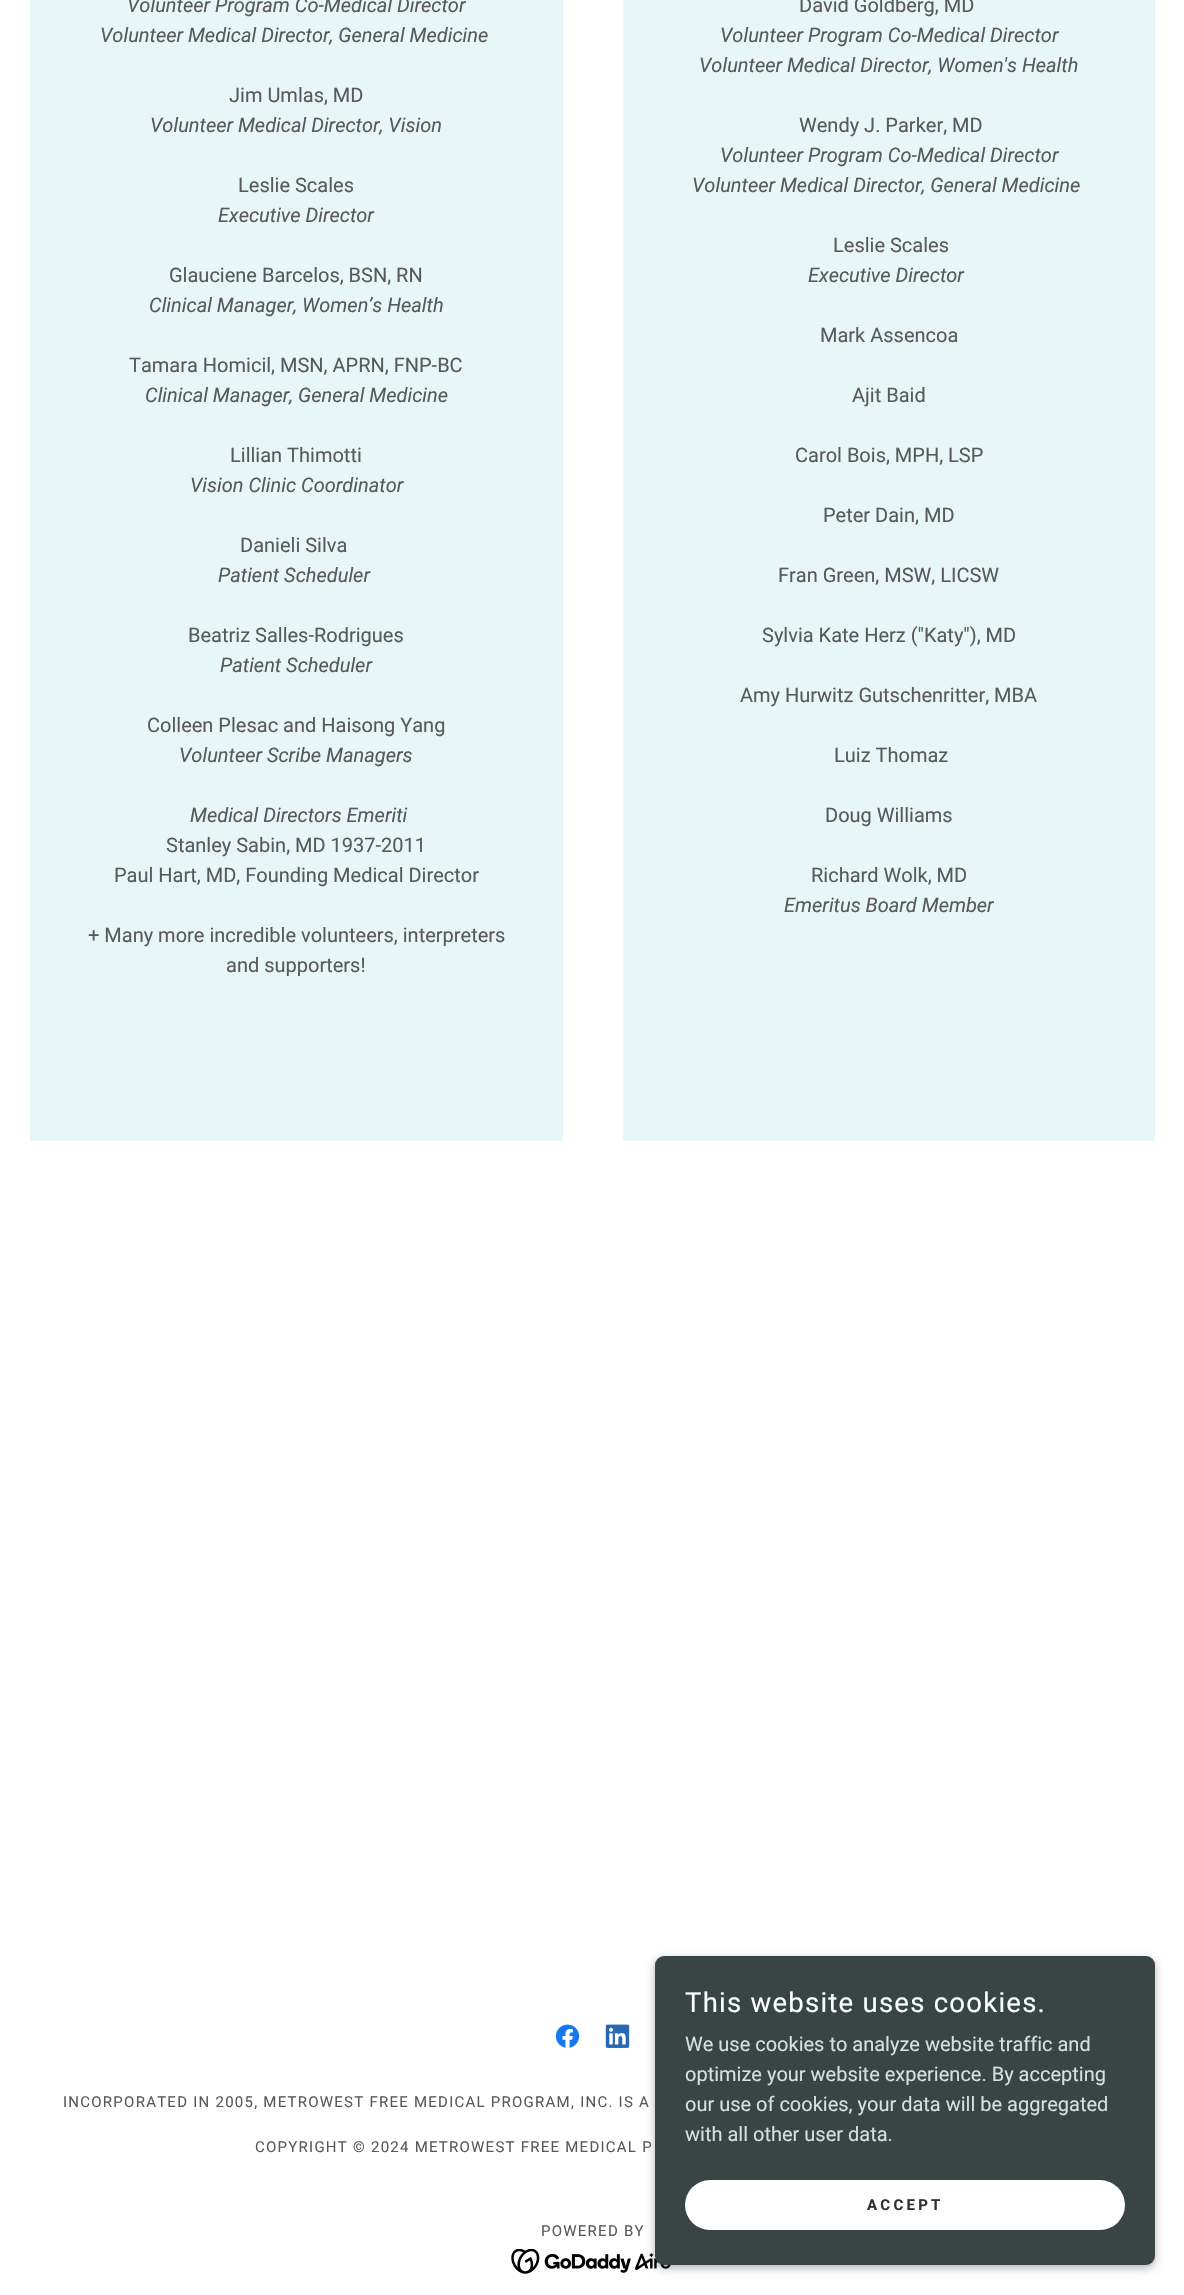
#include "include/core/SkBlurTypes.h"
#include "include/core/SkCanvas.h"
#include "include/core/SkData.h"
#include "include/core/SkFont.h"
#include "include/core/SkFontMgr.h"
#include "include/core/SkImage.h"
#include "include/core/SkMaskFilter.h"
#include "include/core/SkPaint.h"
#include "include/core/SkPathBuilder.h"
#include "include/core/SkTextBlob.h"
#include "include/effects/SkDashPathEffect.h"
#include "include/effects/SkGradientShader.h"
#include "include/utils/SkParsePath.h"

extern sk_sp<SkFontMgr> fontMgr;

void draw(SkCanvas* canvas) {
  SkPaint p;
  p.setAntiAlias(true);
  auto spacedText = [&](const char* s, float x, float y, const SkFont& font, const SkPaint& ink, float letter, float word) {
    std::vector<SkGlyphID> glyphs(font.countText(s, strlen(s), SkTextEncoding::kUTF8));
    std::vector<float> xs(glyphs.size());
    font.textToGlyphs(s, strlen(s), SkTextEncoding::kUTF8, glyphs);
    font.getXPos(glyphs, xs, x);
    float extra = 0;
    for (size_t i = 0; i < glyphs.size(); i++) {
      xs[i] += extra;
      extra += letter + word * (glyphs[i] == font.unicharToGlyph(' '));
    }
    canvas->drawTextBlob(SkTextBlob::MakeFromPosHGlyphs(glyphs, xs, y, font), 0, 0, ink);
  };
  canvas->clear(SK_ColorWHITE);
  p.setColor(SkColorSetRGB(231, 247, 247));
  canvas->drawRect(SkRect::MakeLTRB(30, 0, 563, 1141), p);
  canvas->drawRect(SkRect::MakeLTRB(623, 0, 1155, 1141), p);
  canvas->drawImageRect(SkImages::DeferredFromEncodedData(SkData::MakeFromFileName("images/1.png")), SkRect::MakeLTRB(555, 2024, 580, 2048), SkSamplingOptions());
  canvas->drawImageRect(SkImages::DeferredFromEncodedData(SkData::MakeFromFileName("images/2.png")), SkRect::MakeLTRB(605, 2024, 630, 2048), SkSamplingOptions());
  canvas->drawImageRect(SkImages::DeferredFromEncodedData(SkData::MakeFromFileName("images/3.png")), SkRect::MakeLTRB(511, 2249, 671, 2274), SkSamplingOptions());
  p.setColor(SkColorSetARGB(77, 0, 0, 0));
  p.setMaskFilter(SkMaskFilter::MakeBlur(kNormal_SkBlurStyle, 4));
  canvas->drawRoundRect(SkRect::MakeLTRB(655, 1959, 1155, 2268), 9, 9, p);
  p.setMaskFilter(nullptr);
  p.setColor(SkColorSetRGB(57, 69, 69));
  canvas->drawRoundRect(SkRect::MakeLTRB(655, 1956, 1155, 2265), 9, 9, p);
  p.setColor(SK_ColorWHITE);
  canvas->drawRoundRect(SkRect::MakeLTRB(685, 2180, 1125, 2230), 25, 25, p);
  SkFont font1(fontMgr->matchFamilyStyle("Roboto", SkFontStyle::Italic()), 20);
  font1.setSubpixel(true);
  p.setColor(SkColorSetRGB(89, 89, 89));
  canvas->drawString("Volunteer Program Co-Medical Director", 127, 12, font1, p);
  canvas->drawString("Volunteer Medical Director, General Medicine", 100, 42, font1, p);
  SkFont font2(fontMgr->matchFamilyStyle("Roboto", SkFontStyle::Normal()), 20);
  font2.setSubpixel(true);
  canvas->drawString("Jim Umlas, MD", 229, 102, font2, p);
  canvas->drawString("Volunteer Medical Director, Vision", 150, 132, font1, p);
  canvas->drawString("Leslie Scales", 238, 192, font2, p);
  canvas->drawString("Executive Director", 218, 222, font1, p);
  canvas->drawString("Glauciene Barcelos, BSN, RN", 169, 282, font2, p);
  canvas->drawString("Clinical Manager, Women’s Health", 149, 312, font1, p);
  canvas->drawString("Tamara Homicil, MSN, APRN, FNP-BC", 129, 372, font2, p);
  canvas->drawString("Clinical Manager, General Medicine", 145, 402, font1, p);
  canvas->drawString("Lillian Thimotti", 230, 462, font2, p);
  canvas->drawString("Vision Clinic Coordinator", 190, 492, font1, p);
  canvas->drawString("Danieli Silva", 240, 552, font2, p);
  canvas->drawString("Patient Scheduler", 218, 582, font1, p);
  canvas->drawString("Beatriz Salles-Rodrigues", 188, 642, font2, p);
  canvas->drawString("Patient Scheduler", 220, 672, font1, p);
  canvas->drawString("Colleen Plesac and Haisong Yang", 147, 732, font2, p);
  canvas->drawString("Volunteer Scribe Managers", 179, 762, font1, p);
  canvas->drawString("Medical Directors Emeriti", 190, 822, font1, p);
  canvas->drawString("Stanley Sabin, MD 1937-2011", 166, 852, font2, p);
  canvas->drawString("Paul Hart, MD, Founding Medical Director", 114, 882, font2, p);
  canvas->drawString("+ Many more incredible volunteers, interpreters", 88, 942, font2, p);
  canvas->drawString("and supporters!", 226, 972, font2, p);
  canvas->drawString("David Goldberg, MD", 799, 12, font2, p);
  canvas->drawString("Volunteer Program Co-Medical Director", 720, 42, font1, p);
  canvas->drawString("Volunteer Medical Director, Women's Health", 699, 72, font1, p);
  canvas->drawString("Wendy J. Parker, MD", 799, 132, font2, p);
  canvas->drawString("Volunteer Program Co-Medical Director", 720, 162, font1, p);
  canvas->drawString("Volunteer Medical Director, General Medicine", 692, 192, font1, p);
  canvas->drawString("Leslie Scales", 833, 252, font2, p);
  canvas->drawString("Executive Director", 808, 282, font1, p);
  canvas->drawString("Mark Assencoa", 820, 342, font2, p);
  canvas->drawString("Ajit Baid", 852, 402, font2, p);
  canvas->drawString("Carol Bois, MPH, LSP", 795, 462, font2, p);
  canvas->drawString("Peter Dain, MD", 823, 522, font2, p);
  canvas->drawString("Fran Green, MSW, LICSW", 778, 582, font2, p);
  canvas->drawString("Sylvia Kate Herz (\"Katy\"), MD", 762, 642, font2, p);
  canvas->drawString("Amy Hurwitz Gutschenritter, MBA", 740, 702, font2, p);
  canvas->drawString("Luiz Thomaz", 834, 762, font2, p);
  canvas->drawString("Doug Williams", 825, 822, font2, p);
  canvas->drawString("Richard Wolk, MD", 811, 882, font2, p);
  canvas->drawString("Emeritus Board Member", 784, 912, font1, p);
  SkFont font3(fontMgr->matchFamilyStyle("Roboto", SkFontStyle::Normal()), 15);
  font3.setSubpixel(true);
  spacedText("INCORPORATED IN 2005, METROWEST FREE MEDICAL PROGRAM, INC. IS A", 63, 2107, font3, p, 1.25f, 0);
  spacedText("COPYRIGHT © 2024 METROWEST FREE MEDICAL P", 255, 2152, font3, p, 1.25f, 0);
  spacedText("POWERED BY", 541, 2236, font3, p, 1.25f, 0);
  SkFont font4(fontMgr->matchFamilyStyle("Roboto", SkFontStyle::Normal()), 27.5f);
  font4.setSubpixel(true);
  p.setColor(SK_ColorWHITE);
  spacedText("This website uses cookies.", 685, 2012, font4, p, 1.25f, 0);
  p.setColor(SkColorSetRGB(217, 223, 223));
  canvas->drawString("We use cookies to analyze website traffic and", 685, 2051, font2, p);
  canvas->drawString("optimize your website experience. By accepting", 685, 2081, font2, p);
  canvas->drawString("our use of cookies, your data will be aggregated", 685, 2111, font2, p);
  canvas->drawString("with all other user data.", 685, 2141, font2, p);
  SkFont font5(fontMgr->matchFamilyStyle("Roboto", SkFontStyle::Bold()), 15);
  font5.setSubpixel(true);
  p.setColor(SkColorSetRGB(48, 48, 48));
  spacedText("ACCEPT", 867, 2210, font5, p, 3.25f, 0);
}
